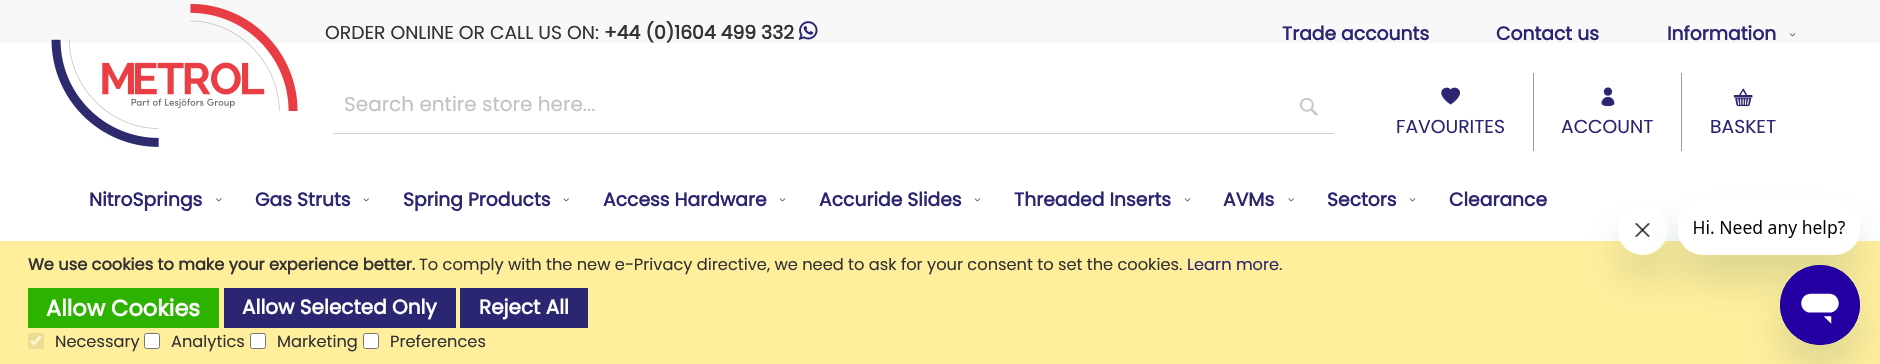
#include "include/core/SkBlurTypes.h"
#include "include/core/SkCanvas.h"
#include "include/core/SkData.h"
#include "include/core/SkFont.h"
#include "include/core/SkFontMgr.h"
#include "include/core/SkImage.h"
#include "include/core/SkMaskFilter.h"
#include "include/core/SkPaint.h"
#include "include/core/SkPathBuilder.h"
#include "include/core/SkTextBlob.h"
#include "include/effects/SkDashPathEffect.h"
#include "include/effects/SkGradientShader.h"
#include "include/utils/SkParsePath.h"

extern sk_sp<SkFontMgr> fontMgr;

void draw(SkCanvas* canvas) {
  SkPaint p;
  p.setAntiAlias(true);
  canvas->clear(SK_ColorWHITE);
  p.setColor(SkColorSetRGB(248, 248, 248));
  canvas->drawRect(SkRect::MakeLTRB(0, 0, 1880, 43), p);
  canvas->drawImageRect(SkImages::DeferredFromEncodedData(SkData::MakeFromFileName("images/1.png")), SkRect::MakeLTRB(51, 3, 298, 147), SkSamplingOptions());
  canvas->drawImageRect(SkImages::DeferredFromEncodedData(SkData::MakeFromFileName("images/2.png")), SkRect::MakeLTRB(798, 21, 818, 40), SkSamplingOptions());
  canvas->drawImageRect(SkImages::DeferredFromEncodedData(SkData::MakeFromFileName("images/3.png")), SkRect::MakeLTRB(1789, 33, 1796, 37), SkSamplingOptions());
  p.setColor(SkColorSetRGB(209, 209, 209));
  canvas->drawRect(SkRect::MakeLTRB(333, 133, 1334, 134), p);
  canvas->drawImageRect(SkImages::DeferredFromEncodedData(SkData::MakeFromFileName("images/4.png")), SkRect::MakeLTRB(1299, 97, 1318, 116), SkSamplingOptions());
  canvas->drawImageRect(SkImages::DeferredFromEncodedData(SkData::MakeFromFileName("images/5.png")), SkRect::MakeLTRB(1441, 87, 1460, 105), SkSamplingOptions());
  p.setColor(SkColorSetRGB(153, 153, 153));
  canvas->drawRect(SkRect::MakeLTRB(1533, 73, 1534, 151), p);
  canvas->drawImageRect(SkImages::DeferredFromEncodedData(SkData::MakeFromFileName("images/6.png")), SkRect::MakeLTRB(1601, 87, 1615, 107), SkSamplingOptions());
  canvas->drawRect(SkRect::MakeLTRB(1681, 73, 1682, 151), p);
  canvas->drawImageRect(SkImages::DeferredFromEncodedData(SkData::MakeFromFileName("images/7.png")), SkRect::MakeLTRB(1733, 88, 1753, 107), SkSamplingOptions());
  canvas->drawImageRect(SkImages::DeferredFromEncodedData(SkData::MakeFromFileName("images/8.png")), SkRect::MakeLTRB(216, 198, 222, 202), SkSamplingOptions());
  canvas->drawImageRect(SkImages::DeferredFromEncodedData(SkData::MakeFromFileName("images/9.png")), SkRect::MakeLTRB(363, 198, 369, 202), SkSamplingOptions());
  canvas->drawImageRect(SkImages::DeferredFromEncodedData(SkData::MakeFromFileName("images/9.png")), SkRect::MakeLTRB(563, 198, 569, 202), SkSamplingOptions());
  canvas->drawImageRect(SkImages::DeferredFromEncodedData(SkData::MakeFromFileName("images/10.png")), SkRect::MakeLTRB(779, 198, 786, 202), SkSamplingOptions());
  canvas->drawImageRect(SkImages::DeferredFromEncodedData(SkData::MakeFromFileName("images/10.png")), SkRect::MakeLTRB(974, 198, 981, 202), SkSamplingOptions());
  canvas->drawImageRect(SkImages::DeferredFromEncodedData(SkData::MakeFromFileName("images/10.png")), SkRect::MakeLTRB(1184, 198, 1191, 202), SkSamplingOptions());
  canvas->drawImageRect(SkImages::DeferredFromEncodedData(SkData::MakeFromFileName("images/9.png")), SkRect::MakeLTRB(1288, 198, 1294, 202), SkSamplingOptions());
  canvas->drawImageRect(SkImages::DeferredFromEncodedData(SkData::MakeFromFileName("images/10.png")), SkRect::MakeLTRB(1409, 198, 1416, 202), SkSamplingOptions());
  p.setColor(SkColorSetRGB(255, 238, 156));
  canvas->drawRect(SkRect::MakeLTRB(0, 241, 1880, 364), p);
  p.setColor(SkColorSetRGB(45, 178, 0));
  canvas->drawRect(SkRect::MakeLTRB(28, 288, 219, 328), p);
  p.setColor(SkColorSetRGB(43, 38, 113));
  canvas->drawRect(SkRect::MakeLTRB(224, 288, 456, 328), p);
  canvas->drawRect(SkRect::MakeLTRB(460, 288, 588, 328), p);
  p.setColor(SkColorSetRGB(235, 220, 150));
  canvas->drawRoundRect(SkRect::MakeLTRB(28, 333, 44, 349), 2.5f, 2.5f, p);
  p.setStyle(SkPaint::kStroke_Style);
  p.setStrokeWidth(2.6f);
  p.setColor(SkColorSetRGB(255, 247, 206));
  canvas->drawPath(SkPathBuilder().moveTo(31, 340.5f).lineTo(34, 344).lineTo(40.5f, 336).detach(), p);
  p.setStyle(SkPaint::kFill_Style);
  p.setColor(SK_ColorWHITE);
  canvas->drawRoundRect(SkRect::MakeLTRB(144.5f, 333.5f, 159.5f, 348.5f), 2, 2, p);
  p.setStyle(SkPaint::kStroke_Style);
  p.setStrokeWidth(1);
  p.setColor(SkColorSetRGB(118, 118, 118));
  canvas->drawRoundRect(SkRect::MakeLTRB(144.5f, 333.5f, 159.5f, 348.5f), 2, 2, p);
  p.setStyle(SkPaint::kFill_Style);
  p.setColor(SK_ColorWHITE);
  canvas->drawRoundRect(SkRect::MakeLTRB(250.5f, 333.5f, 265.5f, 348.5f), 2, 2, p);
  p.setStyle(SkPaint::kStroke_Style);
  p.setColor(SkColorSetRGB(118, 118, 118));
  canvas->drawRoundRect(SkRect::MakeLTRB(250.5f, 333.5f, 265.5f, 348.5f), 2, 2, p);
  p.setStyle(SkPaint::kFill_Style);
  p.setColor(SK_ColorWHITE);
  canvas->drawRoundRect(SkRect::MakeLTRB(363.5f, 333.5f, 378.5f, 348.5f), 2, 2, p);
  p.setStyle(SkPaint::kStroke_Style);
  p.setColor(SkColorSetRGB(118, 118, 118));
  canvas->drawRoundRect(SkRect::MakeLTRB(363.5f, 333.5f, 378.5f, 348.5f), 2, 2, p);
  canvas->save();
  canvas->clipPath(SkPathBuilder(SkPathFillType::kEvenOdd).moveTo(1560, 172).lineTo(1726, 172).lineTo(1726, 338).lineTo(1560, 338).close().moveTo(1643, 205).cubicTo(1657, 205, 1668, 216, 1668, 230).cubicTo(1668, 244, 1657, 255, 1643, 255).cubicTo(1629, 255, 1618, 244, 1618, 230).cubicTo(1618, 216, 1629, 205, 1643, 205).close().detach(), true);
  p.setStyle(SkPaint::kFill_Style);
  p.setColor(SkColorSetARGB(38, 23, 73, 77));
  p.setMaskFilter(SkMaskFilter::MakeBlur(kNormal_SkBlurStyle, 19));
  canvas->drawRoundRect(SkRect::MakeLTRB(1618, 230, 1668, 280), 25, 25, p);
  p.setMaskFilter(nullptr);
  canvas->restore();
  canvas->drawImageRect(SkImages::DeferredFromEncodedData(SkData::MakeFromFileName("images/12.png")), SkRect::MakeLTRB(1620, 223, 1665, 255), SkSamplingOptions());
  canvas->save();
  canvas->clipPath(SkPathBuilder(SkPathFillType::kEvenOdd).moveTo(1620, 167).lineTo(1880, 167).lineTo(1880, 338).lineTo(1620, 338).close().moveTo(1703, 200).lineTo(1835, 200).cubicTo(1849, 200, 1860, 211, 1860, 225).lineTo(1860, 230).cubicTo(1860, 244, 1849, 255, 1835, 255).lineTo(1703, 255).cubicTo(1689, 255, 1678, 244, 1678, 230).lineTo(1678, 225).cubicTo(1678, 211, 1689, 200, 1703, 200).close().detach(), true);
  p.setMaskFilter(SkMaskFilter::MakeBlur(kNormal_SkBlurStyle, 19));
  canvas->drawRoundRect(SkRect::MakeLTRB(1678, 225, 1860, 280), 25, 25, p);
  p.setMaskFilter(nullptr);
  canvas->restore();
  canvas->drawImageRect(SkImages::DeferredFromEncodedData(SkData::MakeFromFileName("images/11.png")), SkRect::MakeLTRB(1678, 220, 1857, 255), SkSamplingOptions());
  p.setMaskFilter(SkMaskFilter::MakeBlur(kNormal_SkBlurStyle, 19));
  canvas->drawRoundRect(SkRect::MakeLTRB(1780, 290, 1860, 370), 40, 40, p);
  p.setMaskFilter(nullptr);
  canvas->drawImageRect(SkImages::DeferredFromEncodedData(SkData::MakeFromFileName("images/13.png")), SkRect::MakeLTRB(1780, 265, 1860, 345), SkSamplingOptions());
  SkFont font1(fontMgr->matchFamilyStyle("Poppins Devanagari", SkFontStyle::Normal()), 18.75f);
  font1.setSubpixel(true);
  p.setColor(SkColorSetRGB(51, 51, 51));
  canvas->drawString("ORDER ONLINE OR CALL US ON:", 325, 39, font1, p);
  SkFont font2(fontMgr->matchFamilyStyle("Poppins Devanagari", SkFontStyle::Bold()), 18.75f);
  font2.setSubpixel(true);
  canvas->drawString("+44 (0)1604 499 332", 604, 39, font2, p);
  p.setColor(SkColorSetRGB(43, 38, 113));
  canvas->drawString("Trade accounts", 1282, 40, font2, p);
  canvas->drawString("Contact us", 1496, 40, font2, p);
  canvas->drawString("Information", 1667, 40, font2, p);
  SkFont font3(fontMgr->matchFamilyStyle("Poppins Devanagari", SkFontStyle::Normal()), 20);
  font3.setSubpixel(true);
  p.setColor(SkColorSetRGB(194, 194, 194));
  canvas->drawString("Search entire store here...", 344, 111, font3, p);
  p.setColor(SkColorSetRGB(43, 38, 113));
  canvas->drawString("FAVOURITES", 1396, 133, font1, p);
  canvas->drawString("ACCOUNT", 1561, 133, font1, p);
  canvas->drawString("BASKET", 1710, 133, font1, p);
  canvas->drawString("NitroSprings", 89, 206, font2, p);
  canvas->drawString("Gas Struts", 255, 206, font2, p);
  canvas->drawString("Spring Products", 403, 206, font2, p);
  canvas->drawString("Access Hardware", 603, 206, font2, p);
  canvas->drawString("Accuride Slides", 819, 206, font2, p);
  canvas->drawString("Threaded Inserts", 1014, 206, font2, p);
  canvas->drawString("AVMs", 1223, 206, font2, p);
  canvas->drawString("Sectors", 1327, 206, font2, p);
  canvas->drawString("Clearance", 1449, 206, font2, p);
  SkFont font4(fontMgr->matchFamilyStyle("Poppins Devanagari", SkFontStyle::Bold()), 16.25f);
  font4.setSubpixel(true);
  p.setColor(SkColorSetRGB(51, 51, 51));
  canvas->drawString("We use cookies to make your experience better.", 28, 270, font4, p);
  SkFont font5(fontMgr->matchFamilyStyle("Poppins Devanagari", SkFontStyle::Normal()), 16.25f);
  font5.setSubpixel(true);
  canvas->drawString("To comply with the new e-Privacy directive, we need to ask for your consent to set the cookies.", 419, 270, font5, p);
  p.setColor(SkColorSetRGB(43, 38, 113));
  canvas->drawString("Learn more", 1187, 270, font5, p);
  p.setColor(SkColorSetRGB(51, 51, 51));
  canvas->drawString(".", 1279, 270, font5, p);
  SkFont font6(fontMgr->matchFamilyStyle("Poppins Devanagari", SkFontStyle::Bold()), 22.5f);
  font6.setSubpixel(true);
  p.setColor(SK_ColorWHITE);
  canvas->drawString("Allow Cookies", 46, 316, font6, p);
  SkFont font7(fontMgr->matchFamilyStyle("Poppins Devanagari", SkFontStyle::Bold()), 20);
  font7.setSubpixel(true);
  canvas->drawString("Allow Selected Only", 242, 314, font7, p);
  canvas->drawString("Reject All", 479, 314, font7, p);
  p.setColor(SkColorSetRGB(51, 51, 51));
  canvas->drawString("Necessary", 55, 347, font5, p);
  canvas->drawString("Analytics", 171, 347, font5, p);
  canvas->drawString("Marketing", 277, 347, font5, p);
  canvas->drawString("Preferences", 390, 347, font5, p);
}
